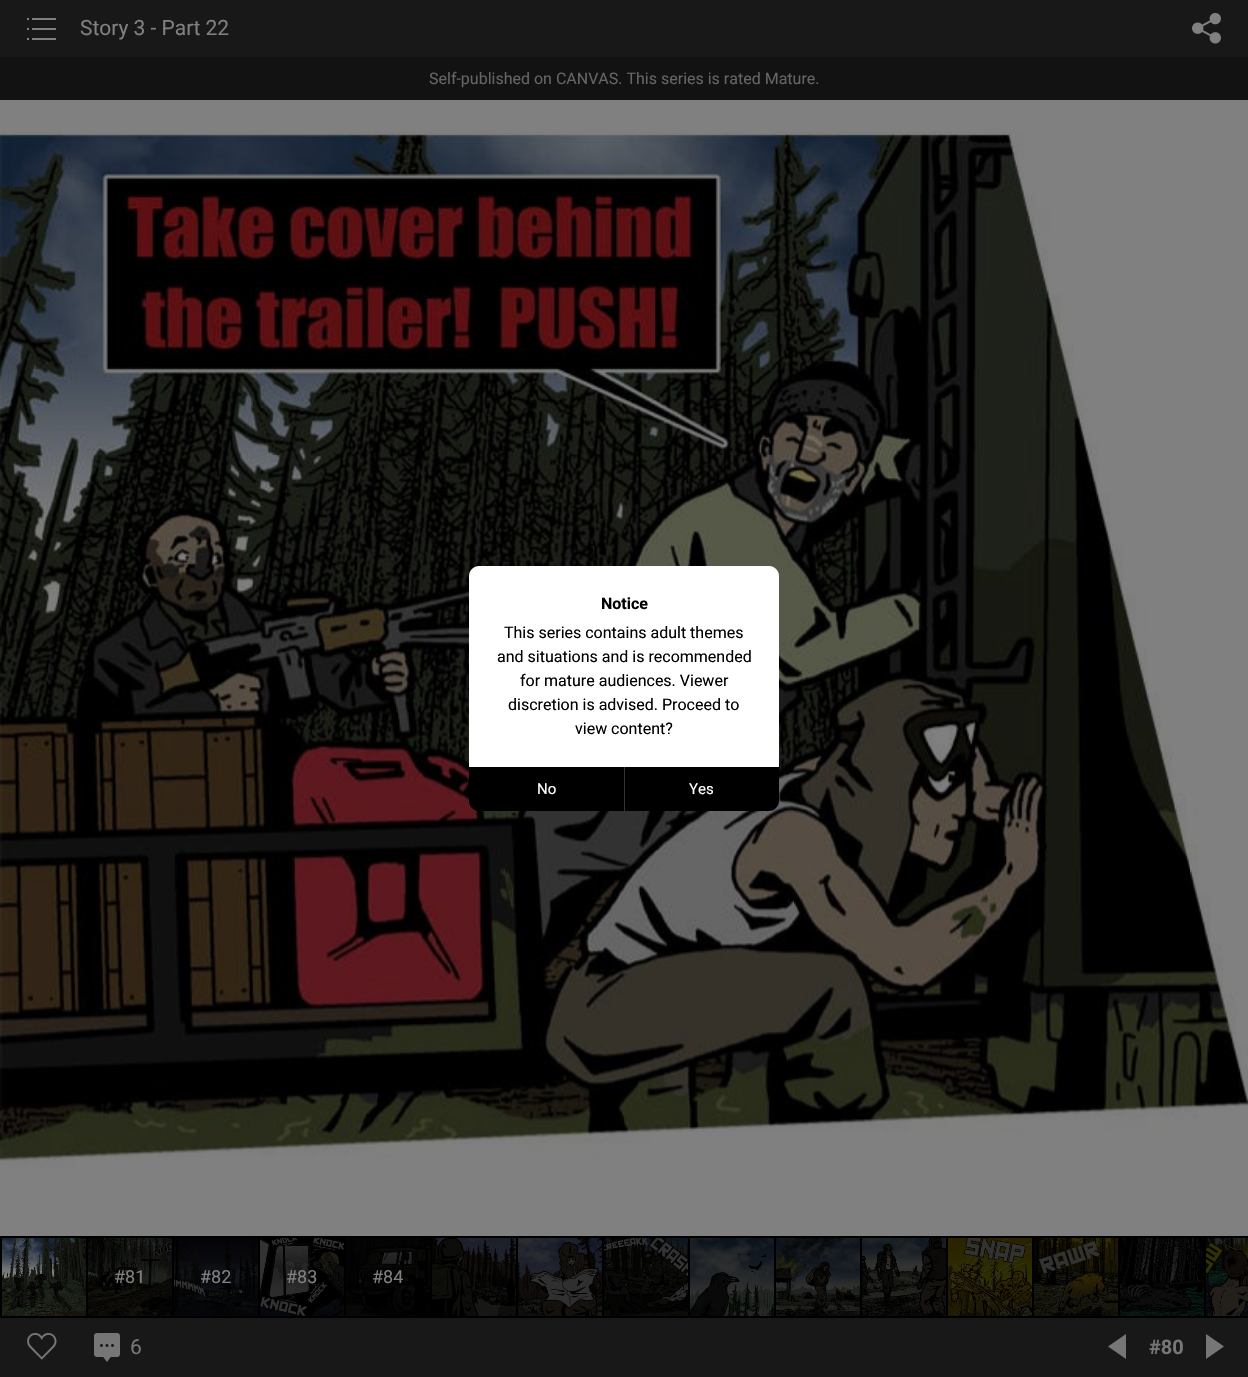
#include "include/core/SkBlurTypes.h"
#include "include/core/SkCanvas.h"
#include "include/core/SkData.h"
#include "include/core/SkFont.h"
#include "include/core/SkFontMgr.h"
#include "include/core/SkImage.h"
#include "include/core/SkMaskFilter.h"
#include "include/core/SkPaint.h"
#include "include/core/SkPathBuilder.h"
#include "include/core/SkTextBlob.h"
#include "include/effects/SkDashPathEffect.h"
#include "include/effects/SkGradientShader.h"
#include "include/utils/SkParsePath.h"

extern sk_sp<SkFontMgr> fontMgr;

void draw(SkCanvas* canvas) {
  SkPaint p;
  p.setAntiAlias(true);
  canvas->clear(SkColorSetRGB(128, 128, 128));
  p.setColor(SkColorSetRGB(24, 24, 24));
  canvas->drawRect(SkRect::MakeLTRB(0, 0, 1248, 57), p);
  canvas->drawImageRect(SkImages::DeferredFromEncodedData(SkData::MakeFromFileName("images/1.png")), SkRect::MakeLTRB(27, 18, 56, 40), SkSamplingOptions());
  canvas->drawImageRect(SkImages::DeferredFromEncodedData(SkData::MakeFromFileName("images/2.png")), SkRect::MakeLTRB(1192, 13, 1221, 44), SkSamplingOptions());
  p.setColor(SkColorSetRGB(18, 18, 18));
  canvas->drawRect(SkRect::MakeLTRB(0, 57, 1248, 100), p);
  canvas->drawImageRect(SkImages::DeferredFromEncodedData(SkData::MakeFromFileName("images/3.png")), SkRect::MakeLTRB(0, 131, 1248, 1168), SkSamplingOptions());
  p.setColor(SkColorSetRGB(24, 24, 24));
  canvas->drawRect(SkRect::MakeLTRB(0, 1318, 1248, 1377), p);
  p.setColor(SK_ColorBLACK);
  canvas->drawRect(SkRect::MakeLTRB(0, 1236, 1248, 1318), p);
  canvas->drawImageRect(SkImages::DeferredFromEncodedData(SkData::MakeFromFileName("images/4.png")), SkRect::MakeLTRB(2, 1238, 86, 1316), SkSamplingOptions());
  canvas->drawImageRect(SkImages::DeferredFromEncodedData(SkData::MakeFromFileName("images/5.png")), SkRect::MakeLTRB(88, 1238, 172, 1316), SkSamplingOptions());
  canvas->drawImageRect(SkImages::DeferredFromEncodedData(SkData::MakeFromFileName("images/6.png")), SkRect::MakeLTRB(174, 1238, 258, 1316), SkSamplingOptions());
  canvas->drawImageRect(SkImages::DeferredFromEncodedData(SkData::MakeFromFileName("images/7.png")), SkRect::MakeLTRB(260, 1238, 344, 1316), SkSamplingOptions());
  canvas->drawImageRect(SkImages::DeferredFromEncodedData(SkData::MakeFromFileName("images/8.png")), SkRect::MakeLTRB(346, 1238, 430, 1316), SkSamplingOptions());
  canvas->drawImageRect(SkImages::DeferredFromEncodedData(SkData::MakeFromFileName("images/9.png")), SkRect::MakeLTRB(432, 1238, 516, 1316), SkSamplingOptions());
  canvas->drawImageRect(SkImages::DeferredFromEncodedData(SkData::MakeFromFileName("images/10.png")), SkRect::MakeLTRB(518, 1238, 602, 1316), SkSamplingOptions());
  canvas->drawImageRect(SkImages::DeferredFromEncodedData(SkData::MakeFromFileName("images/11.png")), SkRect::MakeLTRB(604, 1238, 688, 1316), SkSamplingOptions());
  canvas->drawImageRect(SkImages::DeferredFromEncodedData(SkData::MakeFromFileName("images/12.png")), SkRect::MakeLTRB(690, 1238, 774, 1316), SkSamplingOptions());
  canvas->drawImageRect(SkImages::DeferredFromEncodedData(SkData::MakeFromFileName("images/13.png")), SkRect::MakeLTRB(776, 1238, 860, 1316), SkSamplingOptions());
  canvas->drawImageRect(SkImages::DeferredFromEncodedData(SkData::MakeFromFileName("images/14.png")), SkRect::MakeLTRB(862, 1238, 946, 1316), SkSamplingOptions());
  canvas->drawImageRect(SkImages::DeferredFromEncodedData(SkData::MakeFromFileName("images/15.png")), SkRect::MakeLTRB(948, 1238, 1032, 1316), SkSamplingOptions());
  canvas->drawImageRect(SkImages::DeferredFromEncodedData(SkData::MakeFromFileName("images/16.png")), SkRect::MakeLTRB(1034, 1238, 1118, 1316), SkSamplingOptions());
  canvas->drawImageRect(SkImages::DeferredFromEncodedData(SkData::MakeFromFileName("images/17.png")), SkRect::MakeLTRB(1120, 1238, 1204, 1316), SkSamplingOptions());
  canvas->drawImageRect(SkImages::DeferredFromEncodedData(SkData::MakeFromFileName("images/18.png")), SkRect::MakeLTRB(1206, 1238, 1248, 1316), SkSamplingOptions());
  canvas->drawImageRect(SkImages::DeferredFromEncodedData(SkData::MakeFromFileName("images/19.png")), SkRect::MakeLTRB(27, 1333, 57, 1360), SkSamplingOptions());
  canvas->drawImageRect(SkImages::DeferredFromEncodedData(SkData::MakeFromFileName("images/20.png")), SkRect::MakeLTRB(94, 1333, 120, 1362), SkSamplingOptions());
  canvas->drawImageRect(SkImages::DeferredFromEncodedData(SkData::MakeFromFileName("images/21.png")), SkRect::MakeLTRB(1108, 1334, 1126, 1359), SkSamplingOptions());
  canvas->drawImageRect(SkImages::DeferredFromEncodedData(SkData::MakeFromFileName("images/22.png")), SkRect::MakeLTRB(1206, 1334, 1224, 1359), SkSamplingOptions());
  p.setColor(SK_ColorWHITE);
  canvas->drawPath(SkPathBuilder().moveTo(479, 566).lineTo(769, 566).cubicTo(774.5f, 566, 779, 570.5f, 779, 576).lineTo(779, 767).lineTo(469, 767).lineTo(469, 576).cubicTo(469, 570.5f, 473.5f, 566, 479, 566).close().detach(), p);
  p.setColor(SK_ColorBLACK);
  canvas->drawPath(SkPathBuilder().moveTo(469, 767).lineTo(779, 767).lineTo(779, 801).cubicTo(779, 806.5f, 774.5f, 811, 769, 811).lineTo(479, 811).cubicTo(473.5f, 811, 469, 806.5f, 469, 801).close().detach(), p);
  p.setColor(SkColorSetRGB(51, 51, 51));
  canvas->drawRect(SkRect::MakeLTRB(624, 767, 625, 811), p);
  SkFont font1(fontMgr->matchFamilyStyle("Roboto", SkFontStyle::Normal()), 21);
  font1.setSubpixel(true);
  p.setColor(SkColorSetRGB(128, 128, 128));
  canvas->drawString("Story 3 - Part 22", 80, 35, font1, p);
  SkFont font2(fontMgr->matchFamilyStyle("Roboto", SkFontStyle::Normal()), 16);
  font2.setSubpixel(true);
  p.setColor(SkColorSetRGB(101, 101, 101));
  canvas->drawString("Self-published on CANVAS. This series is rated Mature.", 429, 84, font2, p);
  SkFont font3(fontMgr->matchFamilyStyle("Roboto", SkFontStyle::Normal()), 18);
  font3.setSubpixel(true);
  p.setColor(SkColorSetRGB(128, 128, 128));
  canvas->drawString("#81", 114, 1283, font3, p);
  canvas->drawString("#82", 200, 1283, font3, p);
  canvas->drawString("#83", 286, 1283, font3, p);
  canvas->drawString("#84", 372, 1283, font3, p);
  p.setColor(SkColorSetRGB(118, 118, 118));
  canvas->drawString("6", 130, 1354, font1, p);
  SkFont font4(fontMgr->matchFamilyStyle("Roboto", SkFontStyle::Bold()), 20);
  font4.setSubpixel(true);
  canvas->drawString("#80", 1149, 1354, font4, p);
  SkFont font5(fontMgr->matchFamilyStyle("Roboto", SkFontStyle::Bold()), 16);
  font5.setSubpixel(true);
  p.setColor(SK_ColorBLACK);
  canvas->drawString("Notice", 601, 609, font5, p);
  canvas->drawString("This series contains adult themes", 504, 638, font2, p);
  canvas->drawString("and situations and is recommended", 497, 662, font2, p);
  canvas->drawString("for mature audiences. Viewer", 520, 686, font2, p);
  canvas->drawString("discretion is advised. Proceed to", 508, 710, font2, p);
  canvas->drawString("view content?", 575, 734, font2, p);
  SkFont font6(fontMgr->matchFamilyStyle("Roboto", SkFontStyle::Normal()), 15);
  font6.setSubpixel(true);
  p.setColor(SK_ColorWHITE);
  canvas->drawString("No", 537, 794, font6, p);
  canvas->drawString("Yes", 689, 794, font6, p);
}
